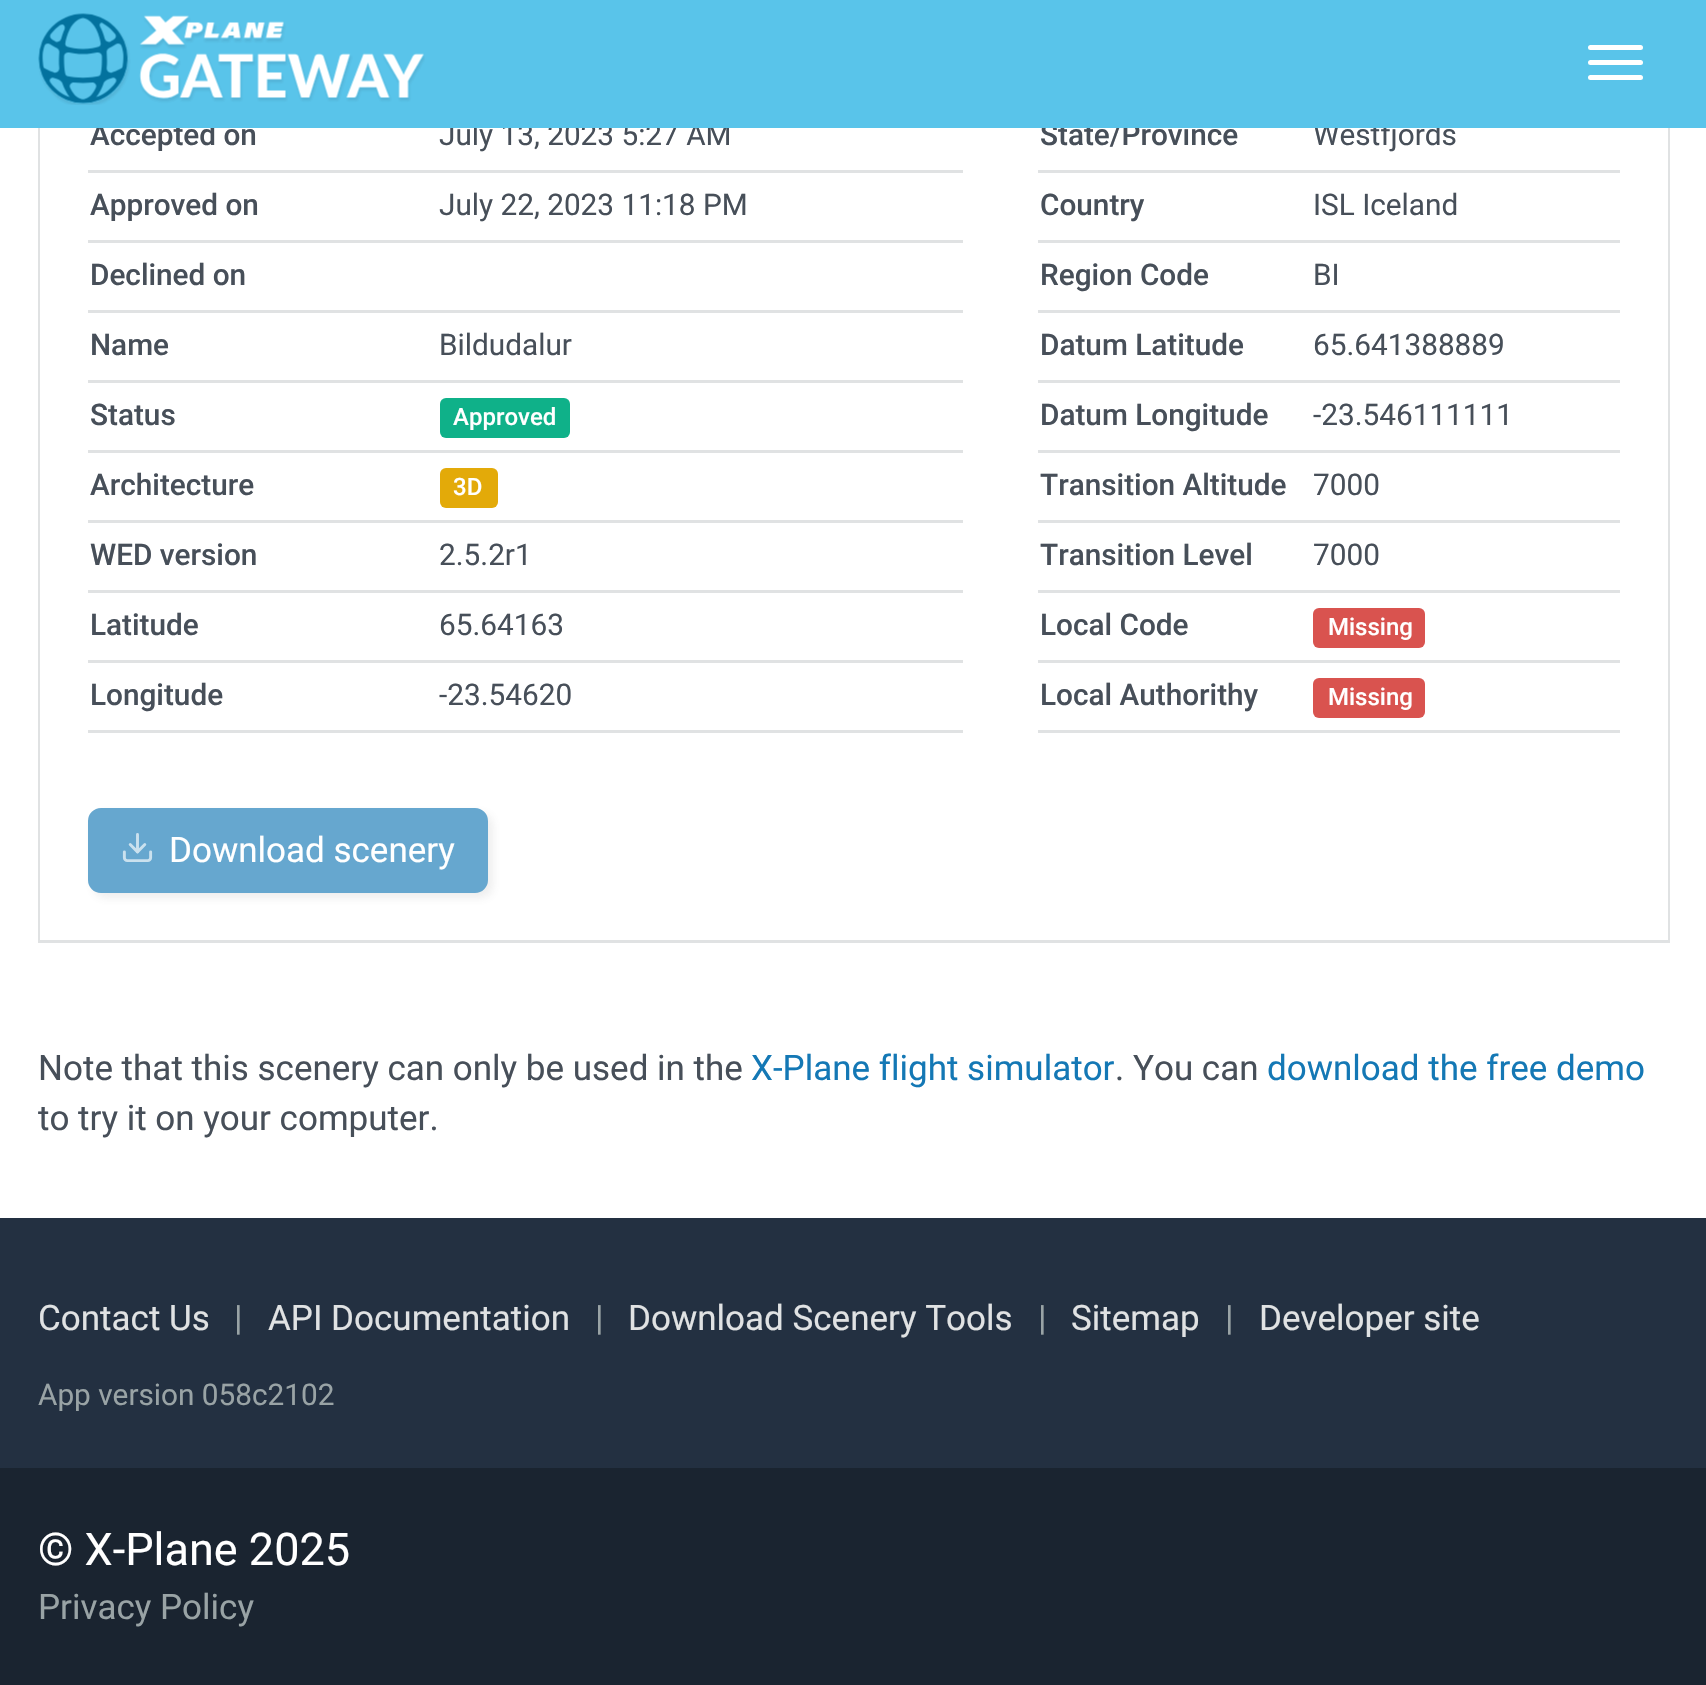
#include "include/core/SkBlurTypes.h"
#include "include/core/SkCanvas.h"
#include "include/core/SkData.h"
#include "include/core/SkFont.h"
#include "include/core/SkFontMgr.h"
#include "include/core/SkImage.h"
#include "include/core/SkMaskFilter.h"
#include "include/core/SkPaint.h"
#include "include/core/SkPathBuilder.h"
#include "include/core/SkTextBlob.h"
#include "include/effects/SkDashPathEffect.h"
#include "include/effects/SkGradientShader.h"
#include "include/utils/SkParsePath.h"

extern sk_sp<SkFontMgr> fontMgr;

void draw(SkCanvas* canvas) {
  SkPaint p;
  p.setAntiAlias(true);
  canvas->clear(SK_ColorWHITE);
  p.setColor(SkColorSetRGB(224, 226, 227));
  canvas->drawPath(SkPathBuilder().moveTo(1670, -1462).lineTo(1670, 942).lineTo(1668, 940).lineTo(1668, -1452).close().detach(), p);
  canvas->drawRect(SkRect::MakeLTRB(38, 940, 1670, 943), p);
  canvas->drawPath(SkPathBuilder().moveTo(38, 942).lineTo(38, -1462).lineTo(40, -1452).lineTo(40, 940).close().detach(), p);
  canvas->drawRect(SkRect::MakeLTRB(88, 170, 963, 173), p);
  canvas->drawRect(SkRect::MakeLTRB(88, 240, 963, 243), p);
  canvas->drawRect(SkRect::MakeLTRB(88, 310, 963, 313), p);
  canvas->drawRect(SkRect::MakeLTRB(88, 380, 963, 383), p);
  canvas->drawRect(SkRect::MakeLTRB(88, 450, 963, 453), p);
  p.setColor(SkColorSetRGB(15, 177, 137));
  canvas->drawRoundRect(SkRect::MakeLTRB(440, 398, 570, 438), 6, 6, p);
  p.setColor(SkColorSetRGB(224, 226, 227));
  canvas->drawRect(SkRect::MakeLTRB(88, 520, 963, 523), p);
  p.setColor(SkColorSetRGB(227, 170, 9));
  canvas->drawRoundRect(SkRect::MakeLTRB(440, 468, 498, 508), 6, 6, p);
  p.setColor(SkColorSetRGB(224, 226, 227));
  canvas->drawRect(SkRect::MakeLTRB(88, 590, 963, 593), p);
  canvas->drawRect(SkRect::MakeLTRB(88, 660, 963, 663), p);
  canvas->drawRect(SkRect::MakeLTRB(88, 730, 963, 733), p);
  canvas->drawRect(SkRect::MakeLTRB(1038, 170, 1620, 173), p);
  canvas->drawRect(SkRect::MakeLTRB(1038, 240, 1620, 243), p);
  canvas->drawRect(SkRect::MakeLTRB(1038, 310, 1620, 313), p);
  canvas->drawRect(SkRect::MakeLTRB(1038, 380, 1620, 383), p);
  canvas->drawRect(SkRect::MakeLTRB(1038, 450, 1620, 453), p);
  canvas->drawRect(SkRect::MakeLTRB(1038, 520, 1620, 523), p);
  canvas->drawRect(SkRect::MakeLTRB(1038, 590, 1620, 593), p);
  canvas->drawRect(SkRect::MakeLTRB(1038, 660, 1620, 663), p);
  p.setColor(SkColorSetRGB(217, 83, 79));
  canvas->drawRoundRect(SkRect::MakeLTRB(1313, 608, 1425, 648), 6, 6, p);
  p.setColor(SkColorSetRGB(224, 226, 227));
  canvas->drawRect(SkRect::MakeLTRB(1038, 730, 1620, 733), p);
  p.setColor(SkColorSetRGB(217, 83, 79));
  canvas->drawRoundRect(SkRect::MakeLTRB(1313, 678, 1425, 718), 6, 6, p);
  p.setColor(SkColorSetARGB(26, 89, 89, 89));
  p.setMaskFilter(SkMaskFilter::MakeBlur(kNormal_SkBlurStyle, 4));
  canvas->drawRoundRect(SkRect::MakeLTRB(93, 813, 493, 898), 13, 13, p);
  p.setMaskFilter(nullptr);
  p.setColor(SkColorSetRGB(102, 167, 207));
  canvas->drawRoundRect(SkRect::MakeLTRB(89.5f, 809.5f, 486.5f, 891.5f), 11.5f, 11.5f, p);
  p.setStyle(SkPaint::kStroke_Style);
  p.setStrokeWidth(3);
  canvas->drawRoundRect(SkRect::MakeLTRB(89.5f, 809.5f, 486.5f, 891.5f), 11.5f, 11.5f, p);
  canvas->drawImageRect(SkImages::DeferredFromEncodedData(SkData::MakeFromFileName("images/2.png")), SkRect::MakeLTRB(122, 833, 153, 862), SkSamplingOptions());
  p.setStyle(SkPaint::kFill_Style);
  p.setColor(SkColorSetRGB(35, 48, 65));
  canvas->drawRect(SkRect::MakeLTRB(0, 1218, 1706, 1468), p);
  p.setColor(SkColorSetRGB(26, 36, 48));
  canvas->drawRect(SkRect::MakeLTRB(0, 1468, 1706, 1685), p);
  SkFont font1(fontMgr->matchFamilyStyle("Roboto", SkFontStyle(500, SkFontStyle::kNormal_Width, SkFontStyle::kUpright_Slant)), 29.75f);
  font1.setSubpixel(true);
  p.setColor(SkColorSetRGB(71, 79, 89));
  canvas->drawString("Accepted on", 90, 145, font1, p);
  SkFont font2(fontMgr->matchFamilyStyle("Roboto", SkFontStyle::Normal()), 29.75f);
  font2.setSubpixel(true);
  canvas->drawString("July 13, 2023 5:27 AM", 439, 145, font2, p);
  canvas->drawString("Approved on", 90, 215, font1, p);
  canvas->drawString("July 22, 2023 11:18 PM", 439, 215, font2, p);
  canvas->drawString("Declined on", 90, 285, font1, p);
  canvas->drawString("Name", 90, 355, font1, p);
  canvas->drawString("Bildudalur", 439, 355, font2, p);
  canvas->drawString("Status", 90, 425, font1, p);
  SkFont font3(fontMgr->matchFamilyStyle("Roboto", SkFontStyle(500, SkFontStyle::kNormal_Width, SkFontStyle::kUpright_Slant)), 24);
  font3.setSubpixel(true);
  p.setColor(SK_ColorWHITE);
  canvas->drawString("Approved", 453, 425, font3, p);
  p.setColor(SkColorSetRGB(71, 79, 89));
  canvas->drawString("Architecture", 90, 495, font1, p);
  p.setColor(SK_ColorWHITE);
  canvas->drawString("3D", 453, 495, font3, p);
  p.setColor(SkColorSetRGB(71, 79, 89));
  canvas->drawString("WED version", 90, 565, font1, p);
  canvas->drawString("2.5.2r1", 439, 565, font2, p);
  canvas->drawString("Latitude", 90, 635, font1, p);
  canvas->drawString("65.64163", 439, 635, font2, p);
  canvas->drawString("Longitude", 90, 705, font1, p);
  canvas->drawString("-23.54620", 439, 705, font2, p);
  canvas->drawString("State/Province", 1040, 145, font1, p);
  canvas->drawString("Westfjords", 1313, 145, font2, p);
  p.setColor(SkColorSetRGB(89, 196, 234));
  canvas->drawRect(SkRect::MakeLTRB(0, 0, 1706, 128), p);
  canvas->drawImageRect(SkImages::DeferredFromEncodedData(SkData::MakeFromFileName("images/1.png")), SkRect::MakeLTRB(38, 13, 425, 105), SkSamplingOptions());
  p.setColor(SK_ColorWHITE);
  canvas->drawRoundRect(SkRect::MakeLTRB(1588, 75, 1643, 80), 2.5f, 2.5f, p);
  canvas->drawRoundRect(SkRect::MakeLTRB(1588, 60, 1643, 65), 2.5f, 2.5f, p);
  canvas->drawRoundRect(SkRect::MakeLTRB(1588, 45, 1643, 50), 2.5f, 2.5f, p);
  p.setColor(SkColorSetRGB(71, 79, 89));
  canvas->drawString("Country", 1040, 215, font1, p);
  canvas->drawString("ISL Iceland", 1313, 215, font2, p);
  canvas->drawString("Region Code", 1040, 285, font1, p);
  canvas->drawString("BI", 1313, 285, font2, p);
  canvas->drawString("Datum Latitude", 1040, 355, font1, p);
  canvas->drawString("65.641388889", 1313, 355, font2, p);
  canvas->drawString("Datum Longitude", 1040, 425, font1, p);
  canvas->drawString("-23.546111111", 1313, 425, font2, p);
  canvas->drawString("Transition Altitude", 1040, 495, font1, p);
  canvas->drawString("7000", 1313, 495, font2, p);
  canvas->drawString("Transition Level", 1040, 565, font1, p);
  canvas->drawString("7000", 1313, 565, font2, p);
  canvas->drawString("Local Code", 1040, 635, font1, p);
  p.setColor(SK_ColorWHITE);
  canvas->drawString("Missing", 1328, 635, font3, p);
  p.setColor(SkColorSetRGB(71, 79, 89));
  canvas->drawString("Local Authorithy", 1040, 705, font1, p);
  p.setColor(SK_ColorWHITE);
  canvas->drawString("Missing", 1328, 705, font3, p);
  SkFont font4(fontMgr->matchFamilyStyle("Roboto", SkFontStyle::Normal()), 35);
  font4.setSubpixel(true);
  canvas->drawString("Download scenery", 169, 862, font4, p);
  p.setColor(SkColorSetRGB(71, 79, 89));
  canvas->drawString("Note that this scenery can only be used in the", 38, 1080, font4, p);
  p.setColor(SkColorSetRGB(20, 120, 181));
  canvas->drawString("X-Plane flight simulator", 751, 1080, font4, p);
  p.setColor(SkColorSetRGB(71, 79, 89));
  canvas->drawString(". You can", 1115, 1080, font4, p);
  p.setColor(SkColorSetRGB(20, 120, 181));
  canvas->drawString("download the free demo", 1267, 1080, font4, p);
  p.setColor(SkColorSetRGB(71, 79, 89));
  canvas->drawString("to try it on your computer.", 38, 1130, font4, p);
  p.setColor(SkColorSetRGB(224, 226, 227));
  canvas->drawString("Contact Us", 38, 1330, font4, p);
  p.setColor(SkColorSetRGB(153, 163, 165));
  canvas->drawString("|", 234, 1330, font4, p);
  p.setColor(SkColorSetRGB(224, 226, 227));
  canvas->drawString("API Documentation", 268, 1330, font4, p);
  p.setColor(SkColorSetRGB(153, 163, 165));
  canvas->drawString("|", 595, 1330, font4, p);
  p.setColor(SkColorSetRGB(224, 226, 227));
  canvas->drawString("Download Scenery Tools", 628, 1330, font4, p);
  p.setColor(SkColorSetRGB(153, 163, 165));
  canvas->drawString("|", 1038, 1330, font4, p);
  p.setColor(SkColorSetRGB(224, 226, 227));
  canvas->drawString("Sitemap", 1071, 1330, font4, p);
  p.setColor(SkColorSetRGB(153, 163, 165));
  canvas->drawString("|", 1225, 1330, font4, p);
  p.setColor(SkColorSetRGB(224, 226, 227));
  canvas->drawString("Developer site", 1259, 1330, font4, p);
  p.setColor(SkColorSetRGB(153, 163, 165));
  canvas->drawString("App version 058c2102", 38, 1405, font2, p);
  SkFont font5(fontMgr->matchFamilyStyle("Roboto", SkFontStyle::Normal()), 45);
  font5.setSubpixel(true);
  p.setColor(SK_ColorWHITE);
  canvas->drawString("© X-Plane 2025", 38, 1565, font5, p);
  p.setColor(SkColorSetRGB(153, 163, 165));
  canvas->drawString("Privacy Policy", 38, 1619, font4, p);
}
